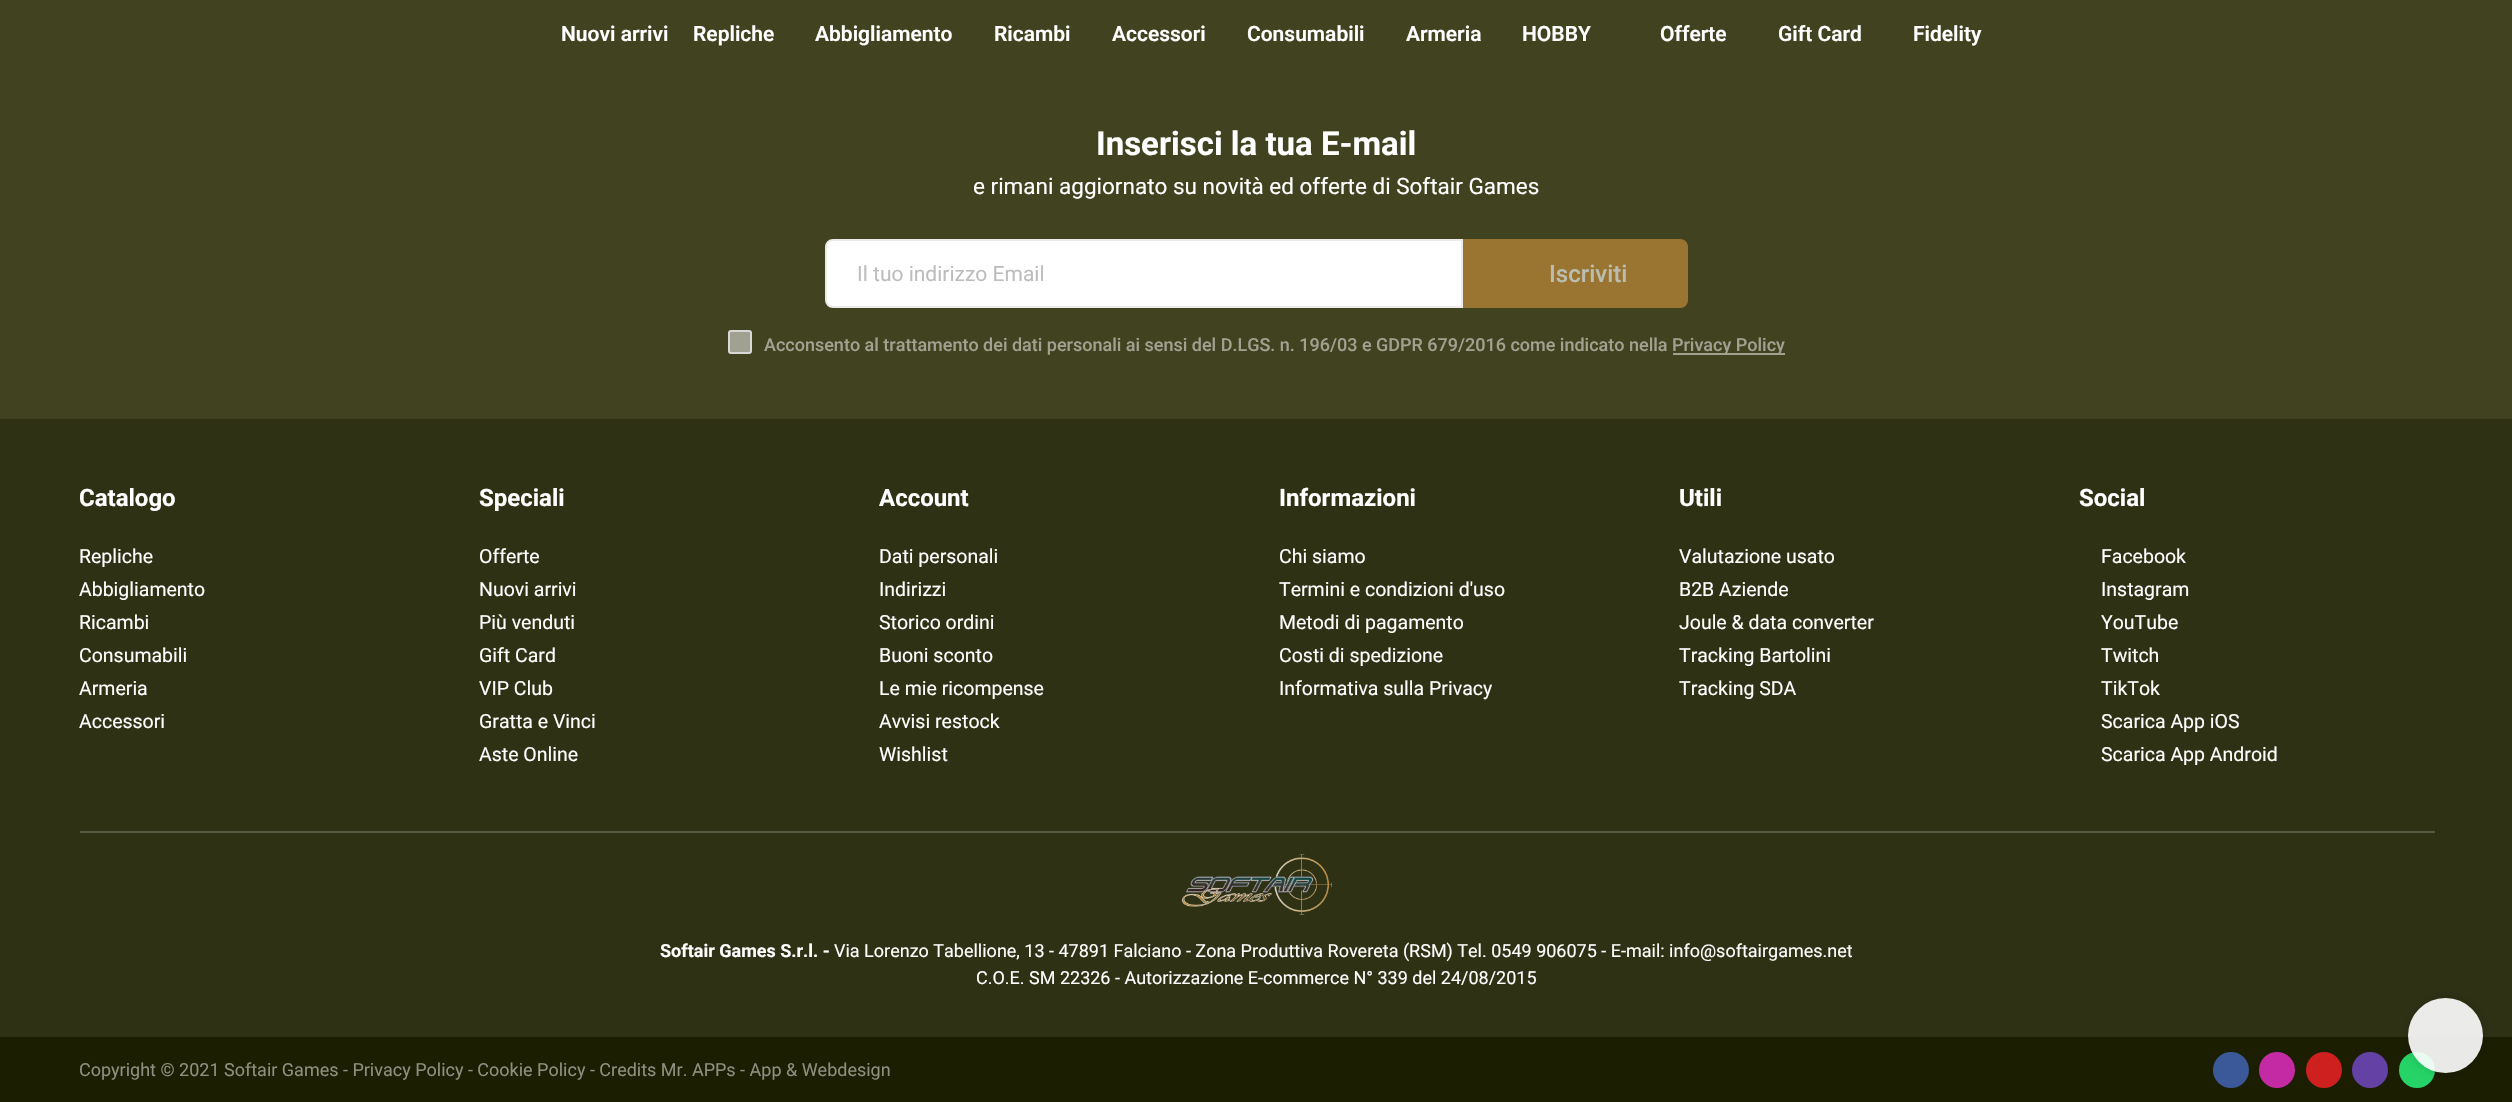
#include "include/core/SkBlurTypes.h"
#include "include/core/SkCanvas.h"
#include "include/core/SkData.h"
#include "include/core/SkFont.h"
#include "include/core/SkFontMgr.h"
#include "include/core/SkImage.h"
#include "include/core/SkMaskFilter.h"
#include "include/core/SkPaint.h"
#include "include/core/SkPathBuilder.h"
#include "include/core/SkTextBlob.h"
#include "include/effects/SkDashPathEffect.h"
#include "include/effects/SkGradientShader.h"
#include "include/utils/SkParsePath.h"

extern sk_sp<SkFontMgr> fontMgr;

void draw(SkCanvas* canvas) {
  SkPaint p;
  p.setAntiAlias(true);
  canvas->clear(SkColorSetRGB(64, 66, 32));
  p.setColor(SK_ColorWHITE);
  canvas->drawPath(SkPathBuilder().moveTo(833, 240).lineTo(1462, 240).lineTo(1462, 307).lineTo(833, 307).cubicTo(829, 307, 826, 304, 826, 300).lineTo(826, 247).cubicTo(826, 243, 829, 240, 833, 240).close().detach(), p);
  p.setStyle(SkPaint::kStroke_Style);
  p.setStrokeWidth(2);
  p.setColor(SkColorSetRGB(235, 235, 235));
  canvas->drawPath(SkPathBuilder().moveTo(833, 240).lineTo(1462, 240).lineTo(1462, 307).lineTo(833, 307).cubicTo(829, 307, 826, 304, 826, 300).lineTo(826, 247).cubicTo(826, 243, 829, 240, 833, 240).close().detach(), p);
  p.setStyle(SkPaint::kFill_Style);
  p.setColor(SkColorSetRGB(154, 117, 50));
  canvas->drawPath(SkPathBuilder().moveTo(1463, 239).lineTo(1680, 239).cubicTo(1684.5f, 239, 1688, 242.5f, 1688, 247).lineTo(1688, 300).cubicTo(1688, 304.5f, 1684.5f, 308, 1680, 308).lineTo(1463, 308).close().detach(), p);
  p.setColor(SkColorSetRGB(160, 161, 144));
  canvas->drawRoundRect(SkRect::MakeLTRB(729, 331, 751, 353), 2, 2, p);
  p.setStyle(SkPaint::kStroke_Style);
  p.setColor(SkColorSetRGB(216, 216, 216));
  canvas->drawRoundRect(SkRect::MakeLTRB(729, 331, 751, 353), 2, 2, p);
  p.setStyle(SkPaint::kFill_Style);
  p.setColor(SkColorSetRGB(160, 161, 144));
  canvas->drawRect(SkRect::MakeLTRB(1673, 353, 1785, 355), p);
  p.setColor(SkColorSetRGB(47, 49, 21));
  canvas->drawRect(SkRect::MakeLTRB(0, 419, 2512, 1037), p);
  p.setColor(SkColorSetRGB(89, 90, 68));
  canvas->drawRect(SkRect::MakeLTRB(80, 831, 2435, 833), p);
  canvas->drawImageRect(SkImages::DeferredFromEncodedData(SkData::MakeFromFileName("images/1.png")), SkRect::MakeLTRB(1182, 854, 1332, 915), SkSamplingOptions());
  p.setColor(SkColorSetRGB(28, 30, 2));
  canvas->drawRect(SkRect::MakeLTRB(0, 1037, 2512, 1102), p);
  p.setColor(SkColorSetRGB(59, 89, 152));
  canvas->drawCircle(2231, 1070, 18, p);
  p.setColor(SkColorSetRGB(195, 42, 163));
  canvas->drawCircle(2277, 1070, 18, p);
  p.setColor(SkColorSetRGB(205, 32, 31));
  canvas->drawCircle(2324, 1070, 18, p);
  p.setColor(SkColorSetRGB(100, 65, 165));
  canvas->drawCircle(2370, 1070, 18, p);
  p.setColor(SkColorSetRGB(37, 211, 102));
  canvas->drawCircle(2417, 1070, 18, p);
  canvas->save();
  canvas->clipPath(SkPathBuilder(SkPathFillType::kEvenOdd).moveTo(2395, 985).lineTo(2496, 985).lineTo(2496, 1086).lineTo(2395, 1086).close().moveTo(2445.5f, 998).cubicTo(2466, 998, 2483, 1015, 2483, 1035.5f).cubicTo(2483, 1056, 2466, 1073, 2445.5f, 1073).cubicTo(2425, 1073, 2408, 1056, 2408, 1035.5f).cubicTo(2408, 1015, 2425, 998, 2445.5f, 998).close().detach(), true);
  p.setColor(SkColorSetARGB(43, 0, 0, 0));
  p.setMaskFilter(SkMaskFilter::MakeBlur(kNormal_SkBlurStyle, 4));
  canvas->drawRoundRect(SkRect::MakeLTRB(2408, 998, 2483, 1073), 37.5f, 37.5f, p);
  p.setMaskFilter(nullptr);
  canvas->restore();
  p.setColor(SkColorSetARGB(230, 255, 255, 255));
  canvas->drawCircle(2445.5f, 1035.5f, 37.5f, p);
  SkFont font1(fontMgr->matchFamilyStyle("Roboto", SkFontStyle(600, SkFontStyle::kNormal_Width, SkFontStyle::kUpright_Slant)), 21);
  font1.setSubpixel(true);
  p.setColor(SK_ColorWHITE);
  canvas->drawString("Nuovi arrivi", 561, 41, font1, p);
  canvas->drawString("Repliche", 693, 41, font1, p);
  canvas->drawString("Abbigliamento", 815, 41, font1, p);
  canvas->drawString("Ricambi", 994, 41, font1, p);
  canvas->drawString("Accessori", 1112, 41, font1, p);
  canvas->drawString("Consumabili", 1247, 41, font1, p);
  canvas->drawString("Armeria", 1406, 41, font1, p);
  canvas->drawString("HOBBY", 1522, 41, font1, p);
  canvas->drawString("Offerte", 1660, 41, font1, p);
  canvas->drawString("Gift Card", 1778, 41, font1, p);
  canvas->drawString("Fidelity", 1913, 41, font1, p);
  SkFont font2(fontMgr->matchFamilyStyle("Roboto", SkFontStyle::Bold()), 33);
  font2.setSubpixel(true);
  canvas->drawString("Inserisci la tua E-mail", 1096, 155, font2, p);
  SkFont font3(fontMgr->matchFamilyStyle("Roboto", SkFontStyle::Normal()), 22.5f);
  font3.setSubpixel(true);
  canvas->drawString("e rimani aggiornato su novità ed offerte di Softair Games", 973, 194, font3, p);
  SkFont font4(fontMgr->matchFamilyStyle("Roboto", SkFontStyle::Normal()), 21);
  font4.setSubpixel(true);
  p.setColor(SkColorSetRGB(189, 189, 189));
  canvas->drawString("Il tuo indirizzo Email", 857, 281, font4, p);
  SkFont font5(fontMgr->matchFamilyStyle("Roboto", SkFontStyle(500, SkFontStyle::kNormal_Width, SkFontStyle::kUpright_Slant)), 24);
  font5.setSubpixel(true);
  p.setColor(SkColorSetRGB(188, 189, 177));
  canvas->drawString("Iscriviti", 1549, 282, font5, p);
  SkFont font6(fontMgr->matchFamilyStyle("Roboto", SkFontStyle(500, SkFontStyle::kNormal_Width, SkFontStyle::kUpright_Slant)), 18);
  font6.setSubpixel(true);
  p.setColor(SkColorSetRGB(160, 161, 144));
  canvas->drawString("Acconsento al trattamento dei dati personali ai sensi del D.LGS. n. 196/03 e GDPR 679/2016 come indicato nella", 764, 351, font6, p);
  canvas->drawString("Privacy Policy", 1672, 351, font6, p);
  SkFont font7(fontMgr->matchFamilyStyle("Roboto", SkFontStyle::Bold()), 24);
  font7.setSubpixel(true);
  p.setColor(SK_ColorWHITE);
  canvas->drawString("Catalogo", 79, 506, font7, p);
  SkFont font8(fontMgr->matchFamilyStyle("Roboto", SkFontStyle::Normal()), 19.5f);
  font8.setSubpixel(true);
  canvas->drawString("Repliche", 79, 563, font8, p);
  canvas->drawString("Abbigliamento", 79, 596, font8, p);
  canvas->drawString("Ricambi", 79, 629, font8, p);
  canvas->drawString("Consumabili", 79, 662, font8, p);
  canvas->drawString("Armeria", 79, 695, font8, p);
  canvas->drawString("Accessori", 79, 728, font8, p);
  canvas->drawString("Speciali", 479, 506, font7, p);
  canvas->drawString("Offerte", 479, 563, font8, p);
  canvas->drawString("Nuovi arrivi", 479, 596, font8, p);
  canvas->drawString("Più venduti", 479, 629, font8, p);
  canvas->drawString("Gift Card", 479, 662, font8, p);
  canvas->drawString("VIP Club", 479, 695, font8, p);
  canvas->drawString("Gratta e Vinci", 479, 728, font8, p);
  canvas->drawString("Aste Online", 479, 761, font8, p);
  canvas->drawString("Account", 879, 506, font7, p);
  canvas->drawString("Dati personali", 879, 563, font8, p);
  canvas->drawString("Indirizzi", 879, 596, font8, p);
  canvas->drawString("Storico ordini", 879, 629, font8, p);
  canvas->drawString("Buoni sconto", 879, 662, font8, p);
  canvas->drawString("Le mie ricompense", 879, 695, font8, p);
  canvas->drawString("Avvisi restock", 879, 728, font8, p);
  canvas->drawString("Wishlist", 879, 761, font8, p);
  canvas->drawString("Informazioni", 1279, 506, font7, p);
  canvas->drawString("Chi siamo", 1279, 563, font8, p);
  canvas->drawString("Termini e condizioni d'uso", 1279, 596, font8, p);
  canvas->drawString("Metodi di pagamento", 1279, 629, font8, p);
  canvas->drawString("Costi di spedizione", 1279, 662, font8, p);
  canvas->drawString("Informativa sulla Privacy", 1279, 695, font8, p);
  canvas->drawString("Utili", 1679, 506, font7, p);
  canvas->drawString("Valutazione usato", 1679, 563, font8, p);
  canvas->drawString("B2B Aziende", 1679, 596, font8, p);
  canvas->drawString("Joule & data converter", 1679, 629, font8, p);
  canvas->drawString("Tracking Bartolini", 1679, 662, font8, p);
  canvas->drawString("Tracking SDA", 1679, 695, font8, p);
  canvas->drawString("Social", 2079, 506, font7, p);
  canvas->drawString("Facebook", 2101, 563, font8, p);
  canvas->drawString("Instagram", 2101, 596, font8, p);
  canvas->drawString("YouTube", 2101, 629, font8, p);
  canvas->drawString("Twitch", 2101, 662, font8, p);
  canvas->drawString("TikTok", 2101, 695, font8, p);
  canvas->drawString("Scarica App iOS", 2101, 728, font8, p);
  canvas->drawString("Scarica App Android", 2101, 761, font8, p);
  SkFont font9(fontMgr->matchFamilyStyle("Roboto", SkFontStyle::Bold()), 18);
  font9.setSubpixel(true);
  canvas->drawString("Softair Games S.r.l. -", 660, 957, font9, p);
  SkFont font10(fontMgr->matchFamilyStyle("Roboto", SkFontStyle::Normal()), 18);
  font10.setSubpixel(true);
  canvas->drawString("Via Lorenzo Tabellione, 13 - 47891 Falciano - Zona Produttiva Rovereta (RSM) Tel. 0549 906075 - E-mail: info@softairgames.net", 834, 957, font10, p);
  canvas->drawString("C.O.E. SM 22326 - Autorizzazione E-commerce N° 339 del 24/08/2015", 976, 984, font10, p);
  p.setColor(SkColorSetRGB(142, 143, 129));
  canvas->drawString("Copyright © 2021 Softair Games - Privacy Policy - Cookie Policy - Credits Mr. APPs - App & Webdesign", 79, 1076, font10, p);
}
